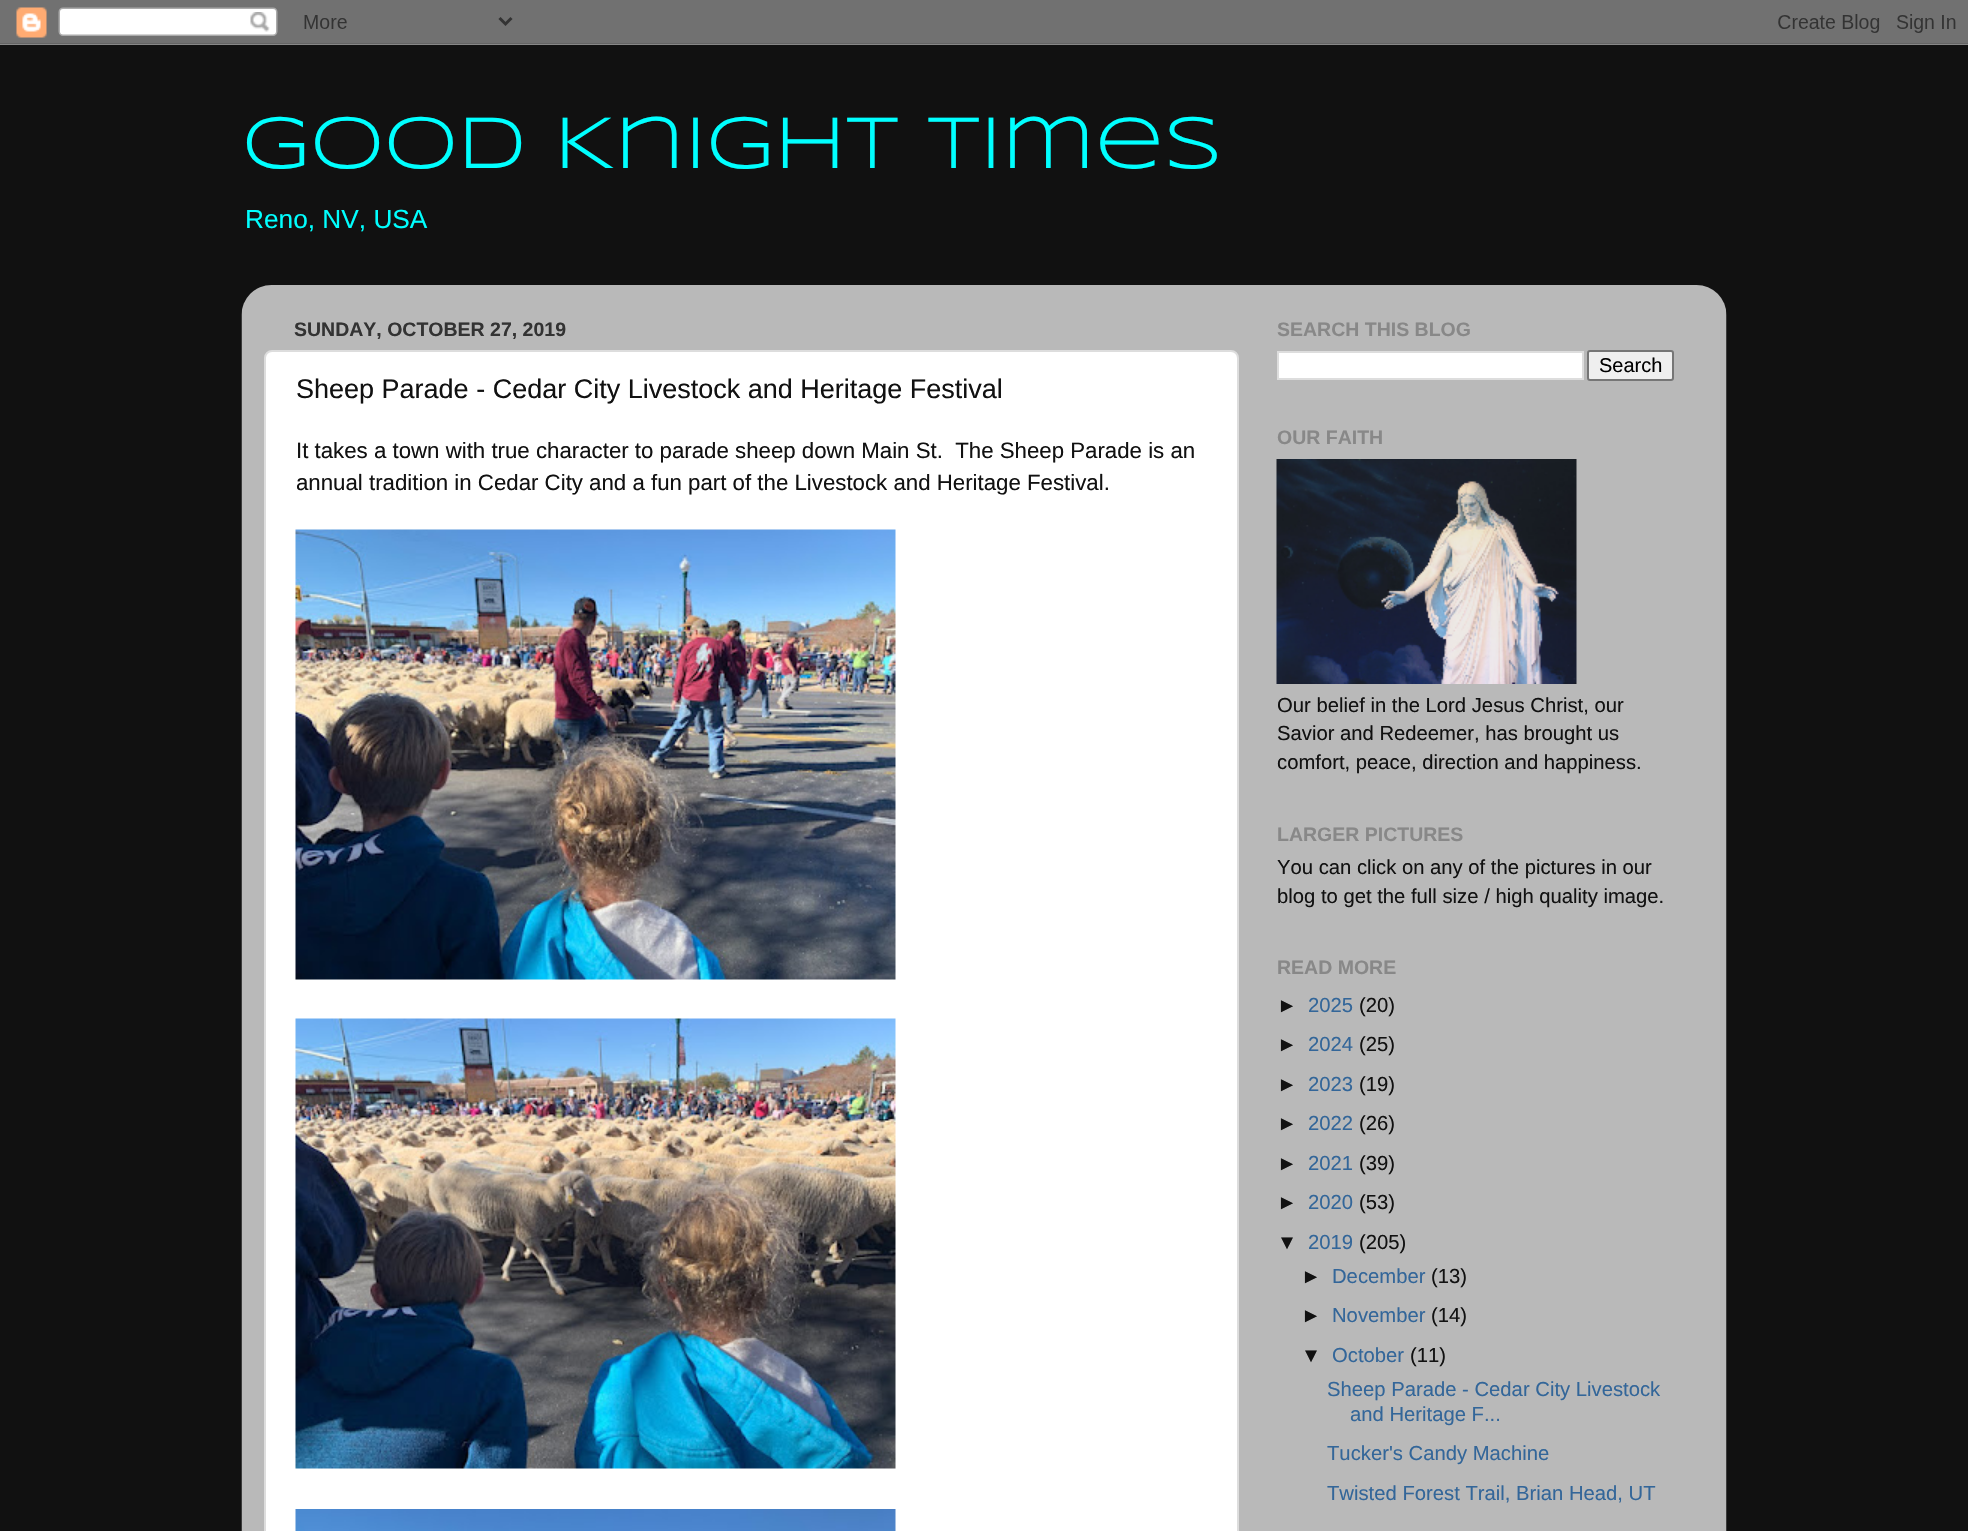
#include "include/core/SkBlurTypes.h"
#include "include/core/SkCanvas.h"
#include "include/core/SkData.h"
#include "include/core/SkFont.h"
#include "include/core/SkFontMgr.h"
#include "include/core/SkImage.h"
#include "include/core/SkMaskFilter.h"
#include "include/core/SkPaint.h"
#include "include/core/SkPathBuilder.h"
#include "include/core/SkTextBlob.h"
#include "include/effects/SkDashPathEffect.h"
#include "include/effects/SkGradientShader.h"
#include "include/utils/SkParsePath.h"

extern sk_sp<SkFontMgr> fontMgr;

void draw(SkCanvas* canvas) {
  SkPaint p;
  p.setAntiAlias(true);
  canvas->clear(SkColorSetRGB(17, 17, 17));
  canvas->drawImageRect(SkImages::DeferredFromEncodedData(SkData::MakeFromFileName("images/1.png")), SkRect::MakeLTRB(0, 0, 1968, 45), SkSamplingOptions());
  canvas->drawImageRect(SkImages::DeferredFromEncodedData(SkData::MakeFromFileName("images/2.png")), SkRect::MakeLTRB(241, 285, 1727, 1531), SkSamplingOptions());
  p.setColor(SK_ColorWHITE);
  canvas->drawRoundRect(SkRect::MakeLTRB(265, 351, 1238, 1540), 7, 7, p);
  p.setStyle(SkPaint::kStroke_Style);
  p.setStrokeWidth(2);
  p.setColor(SkColorSetRGB(221, 221, 221));
  canvas->drawRoundRect(SkRect::MakeLTRB(265, 351, 1238, 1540), 7, 7, p);
  canvas->drawImageRect(SkImages::DeferredFromEncodedData(SkData::MakeFromFileName("images/3.png")), SkRect::MakeLTRB(295, 529, 896, 980), SkSamplingOptions());
  canvas->drawImageRect(SkImages::DeferredFromEncodedData(SkData::MakeFromFileName("images/4.png")), SkRect::MakeLTRB(295, 1018, 896, 1469), SkSamplingOptions());
  canvas->drawImageRect(SkImages::DeferredFromEncodedData(SkData::MakeFromFileName("images/5.png")), SkRect::MakeLTRB(295, 1509, 896, 1531), SkSamplingOptions());
  p.setStyle(SkPaint::kFill_Style);
  p.setColor(SK_ColorWHITE);
  canvas->drawRect(SkRect::MakeLTRB(1278, 352, 1583, 379), p);
  p.setStyle(SkPaint::kStroke_Style);
  p.setColor(SkColorSetRGB(221, 221, 221));
  canvas->drawRect(SkRect::MakeLTRB(1278, 352, 1583, 379), p);
  p.setStyle(SkPaint::kFill_Style);
  p.setColor(SkColorSetRGB(239, 239, 239));
  canvas->drawRoundRect(SkRect::MakeLTRB(1588, 351, 1673, 380), 2, 2, p);
  p.setStyle(SkPaint::kStroke_Style);
  p.setColor(SkColorSetRGB(118, 118, 118));
  canvas->drawRoundRect(SkRect::MakeLTRB(1588, 351, 1673, 380), 2, 2, p);
  canvas->drawImageRect(SkImages::DeferredFromEncodedData(SkData::MakeFromFileName("images/6.png")), SkRect::MakeLTRB(1276, 459, 1577, 684), SkSamplingOptions());
  SkFont font1(fontMgr->matchFamilyStyle("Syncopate", SkFontStyle::Normal()), 75);
  font1.setSubpixel(true);
  p.setStyle(SkPaint::kFill_Style);
  p.setColor(SkColorSetRGB(0, 255, 255));
  canvas->drawString("Good Knight Times", 242, 168, font1, p);
  SkFont font2(fontMgr->matchFamilyStyle("Liberation Sans", SkFontStyle::Normal()), 26.25f);
  font2.setSubpixel(true);
  canvas->drawString("Reno, NV, USA", 245, 228, font2, p);
  SkFont font3(fontMgr->matchFamilyStyle("Liberation Sans", SkFontStyle::Bold()), 19.5f);
  font3.setSubpixel(true);
  p.setColor(SkColorSetRGB(51, 51, 51));
  canvas->drawString("SUNDAY, OCTOBER 27, 2019", 294, 336, font3, p);
  SkFont font4(fontMgr->matchFamilyStyle("Liberation Sans", SkFontStyle::Normal()), 27);
  font4.setSubpixel(true);
  p.setColor(SkColorSetRGB(17, 17, 17));
  canvas->drawString("Sheep Parade - Cedar City Livestock and Heritage Festival", 296, 398, font4, p);
  SkFont font5(fontMgr->matchFamilyStyle("Liberation Sans", SkFontStyle::Normal()), 22.25f);
  font5.setSubpixel(true);
  canvas->drawString("It takes a town with true character to parade sheep down Main St.  The Sheep Parade is an", 296, 458, font5, p);
  canvas->drawString("annual tradition in Cedar City and a fun part of the Livestock and Heritage Festival.", 296, 490, font5, p);
  p.setColor(SkColorSetRGB(136, 136, 136));
  canvas->drawString("SEARCH THIS BLOG", 1277, 336, font3, p);
  SkFont font6(fontMgr->matchFamilyStyle("Liberation Sans", SkFontStyle::Normal()), 20);
  font6.setSubpixel(true);
  p.setColor(SK_ColorBLACK);
  canvas->drawString("Search", 1599, 372, font6, p);
  p.setColor(SkColorSetRGB(136, 136, 136));
  canvas->drawString("OUR FAITH", 1277, 444, font3, p);
  SkFont font7(fontMgr->matchFamilyStyle("Liberation Sans", SkFontStyle::Normal()), 20.25f);
  font7.setSubpixel(true);
  p.setColor(SkColorSetRGB(17, 17, 17));
  canvas->drawString("Our belief in the Lord Jesus Christ, our", 1277, 712, font7, p);
  canvas->drawString("Savior and Redeemer, has brought us", 1277, 740, font7, p);
  canvas->drawString("comfort, peace, direction and happiness.", 1277, 769, font7, p);
  p.setColor(SkColorSetRGB(136, 136, 136));
  canvas->drawString("LARGER PICTURES", 1277, 841, font3, p);
  p.setColor(SkColorSetRGB(17, 17, 17));
  canvas->drawString("You can click on any of the pictures in our", 1277, 874, font7, p);
  canvas->drawString("blog to get the full size / high quality image.", 1277, 903, font7, p);
  p.setColor(SkColorSetRGB(136, 136, 136));
  canvas->drawString("READ MORE", 1277, 974, font3, p);
  p.setColor(SkColorSetRGB(17, 17, 17));
  canvas->drawString("►", 1277, 1012, font7, p);
  p.setColor(SkColorSetRGB(51, 102, 153));
  canvas->drawString("2025", 1308, 1012, font7, p);
  p.setColor(SkColorSetRGB(17, 17, 17));
  canvas->drawString("(20)", 1359, 1012, font7, p);
  canvas->drawString("►", 1277, 1051, font7, p);
  p.setColor(SkColorSetRGB(51, 102, 153));
  canvas->drawString("2024", 1308, 1051, font7, p);
  p.setColor(SkColorSetRGB(17, 17, 17));
  canvas->drawString("(25)", 1359, 1051, font7, p);
  canvas->drawString("►", 1277, 1091, font7, p);
  p.setColor(SkColorSetRGB(51, 102, 153));
  canvas->drawString("2023", 1308, 1091, font7, p);
  p.setColor(SkColorSetRGB(17, 17, 17));
  canvas->drawString("(19)", 1359, 1091, font7, p);
  canvas->drawString("►", 1277, 1130, font7, p);
  p.setColor(SkColorSetRGB(51, 102, 153));
  canvas->drawString("2022", 1308, 1130, font7, p);
  p.setColor(SkColorSetRGB(17, 17, 17));
  canvas->drawString("(26)", 1359, 1130, font7, p);
  canvas->drawString("►", 1277, 1170, font7, p);
  p.setColor(SkColorSetRGB(51, 102, 153));
  canvas->drawString("2021", 1308, 1170, font7, p);
  p.setColor(SkColorSetRGB(17, 17, 17));
  canvas->drawString("(39)", 1359, 1170, font7, p);
  canvas->drawString("►", 1277, 1209, font7, p);
  p.setColor(SkColorSetRGB(51, 102, 153));
  canvas->drawString("2020", 1308, 1209, font7, p);
  p.setColor(SkColorSetRGB(17, 17, 17));
  canvas->drawString("(53)", 1359, 1209, font7, p);
  canvas->drawString("▼", 1277, 1249, font7, p);
  p.setColor(SkColorSetRGB(51, 102, 153));
  canvas->drawString("2019", 1308, 1249, font7, p);
  p.setColor(SkColorSetRGB(17, 17, 17));
  canvas->drawString("(205)", 1359, 1249, font7, p);
  canvas->drawString("►", 1301, 1283, font7, p);
  p.setColor(SkColorSetRGB(51, 102, 153));
  canvas->drawString("December", 1332, 1283, font7, p);
  p.setColor(SkColorSetRGB(17, 17, 17));
  canvas->drawString("(13)", 1431, 1283, font7, p);
  canvas->drawString("►", 1301, 1322, font7, p);
  p.setColor(SkColorSetRGB(51, 102, 153));
  canvas->drawString("November", 1332, 1322, font7, p);
  p.setColor(SkColorSetRGB(17, 17, 17));
  canvas->drawString("(14)", 1431, 1322, font7, p);
  canvas->drawString("▼", 1301, 1362, font7, p);
  p.setColor(SkColorSetRGB(51, 102, 153));
  canvas->drawString("October", 1332, 1362, font7, p);
  p.setColor(SkColorSetRGB(17, 17, 17));
  canvas->drawString("(11)", 1410, 1362, font7, p);
  p.setColor(SkColorSetRGB(51, 102, 153));
  canvas->drawString("Sheep Parade - Cedar City Livestock", 1327, 1396, font7, p);
  canvas->drawString("and Heritage F...", 1350, 1421, font7, p);
  canvas->drawString("Tucker's Candy Machine", 1327, 1460, font7, p);
  canvas->drawString("Twisted Forest Trail, Brian Head, UT", 1327, 1500, font7, p);
}
